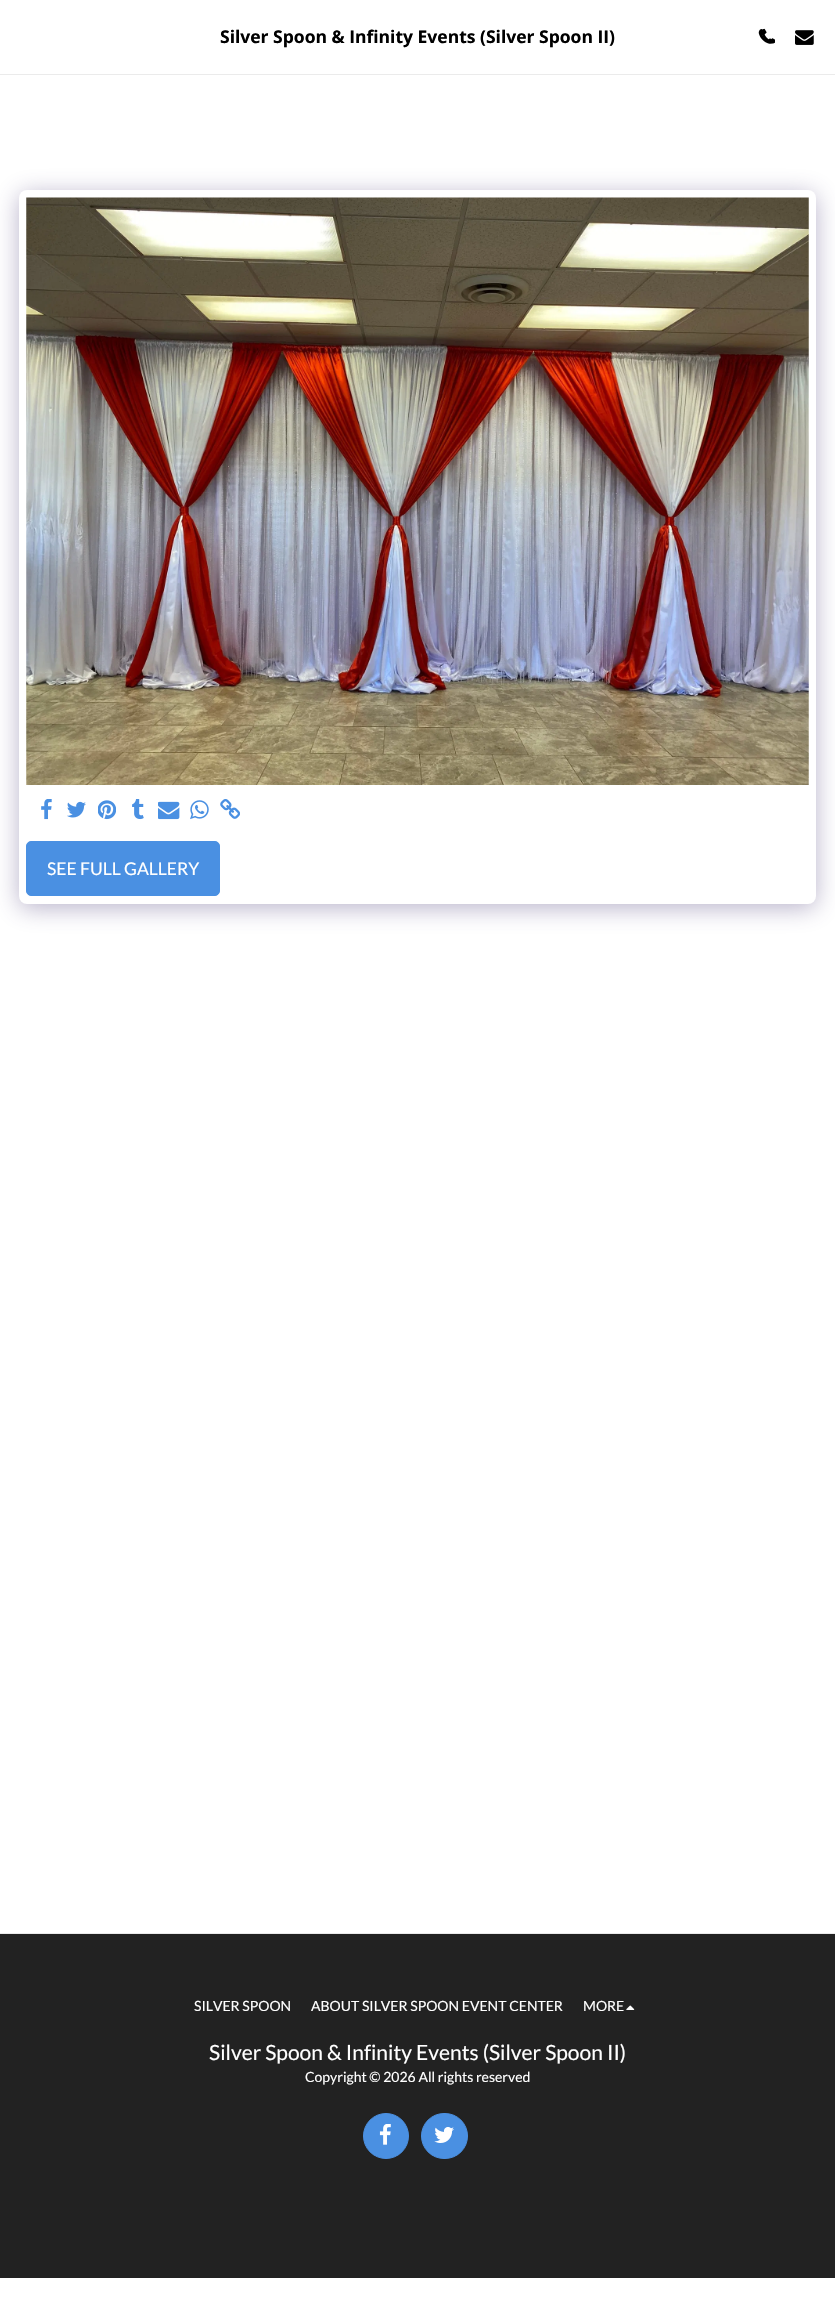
#include "include/core/SkBlurTypes.h"
#include "include/core/SkCanvas.h"
#include "include/core/SkData.h"
#include "include/core/SkFont.h"
#include "include/core/SkFontMgr.h"
#include "include/core/SkImage.h"
#include "include/core/SkMaskFilter.h"
#include "include/core/SkPaint.h"
#include "include/core/SkPathBuilder.h"
#include "include/core/SkTextBlob.h"
#include "include/effects/SkDashPathEffect.h"
#include "include/effects/SkGradientShader.h"
#include "include/utils/SkParsePath.h"

extern sk_sp<SkFontMgr> fontMgr;

void draw(SkCanvas* canvas) {
  SkPaint p;
  p.setAntiAlias(true);
  canvas->clear(SK_ColorWHITE);
  p.setColor(SkColorSetRGB(235, 235, 235));
  canvas->drawRect(SkRect::MakeLTRB(0, 74, 835, 75), p);
  canvas->drawImageRect(SkImages::DeferredFromEncodedData(SkData::MakeFromFileName("images/1.png")), SkRect::MakeLTRB(762, 28, 775, 44), SkSamplingOptions());
  canvas->drawImageRect(SkImages::DeferredFromEncodedData(SkData::MakeFromFileName("images/2.png")), SkRect::MakeLTRB(758, 29, 772, 44), SkSamplingOptions());
  canvas->drawImageRect(SkImages::DeferredFromEncodedData(SkData::MakeFromFileName("images/3.png")), SkRect::MakeLTRB(795, 30, 814, 45), SkSamplingOptions());
  p.setColor(SkColorSetARGB(102, 77, 63, 122));
  p.setMaskFilter(SkMaskFilter::MakeBlur(kNormal_SkBlurStyle, 12.5f));
  canvas->drawRoundRect(SkRect::MakeLTRB(19, 194, 816, 908), 8, 8, p);
  p.setMaskFilter(nullptr);
  p.setColor(SK_ColorWHITE);
  canvas->drawRoundRect(SkRect::MakeLTRB(19, 190, 816, 904), 8, 8, p);
  canvas->drawImageRect(SkImages::DeferredFromEncodedData(SkData::MakeFromFileName("images/4.png")), SkRect::MakeLTRB(26, 197, 809, 785), SkSamplingOptions());
  canvas->drawImageRect(SkImages::DeferredFromEncodedData(SkData::MakeFromFileName("images/5.png")), SkRect::MakeLTRB(41, 799, 52, 820), SkSamplingOptions());
  canvas->drawImageRect(SkImages::DeferredFromEncodedData(SkData::MakeFromFileName("images/6.png")), SkRect::MakeLTRB(67, 801, 86, 818), SkSamplingOptions());
  canvas->drawImageRect(SkImages::DeferredFromEncodedData(SkData::MakeFromFileName("images/7.png")), SkRect::MakeLTRB(98, 800, 116, 820), SkSamplingOptions());
  canvas->drawImageRect(SkImages::DeferredFromEncodedData(SkData::MakeFromFileName("images/8.png")), SkRect::MakeLTRB(132, 799, 144, 820), SkSamplingOptions());
  canvas->drawImageRect(SkImages::DeferredFromEncodedData(SkData::MakeFromFileName("images/9.png")), SkRect::MakeLTRB(158, 801, 180, 820), SkSamplingOptions());
  canvas->drawImageRect(SkImages::DeferredFromEncodedData(SkData::MakeFromFileName("images/10.png")), SkRect::MakeLTRB(190, 800, 209, 820), SkSamplingOptions());
  canvas->drawImageRect(SkImages::DeferredFromEncodedData(SkData::MakeFromFileName("images/11.png")), SkRect::MakeLTRB(220, 799, 240, 819), SkSamplingOptions());
  p.setColor(SkColorSetRGB(74, 144, 226));
  canvas->drawRoundRect(SkRect::MakeLTRB(26.5f, 841.5f, 219.5f, 895.5f), 4.5f, 4.5f, p);
  p.setStyle(SkPaint::kStroke_Style);
  p.setStrokeWidth(1);
  canvas->drawRoundRect(SkRect::MakeLTRB(26.5f, 841.5f, 219.5f, 895.5f), 4.5f, 4.5f, p);
  p.setStyle(SkPaint::kFill_Style);
  p.setColor(SkColorSetRGB(34, 34, 34));
  canvas->drawRect(SkRect::MakeLTRB(0, 1934, 835, 2278), p);
  p.setColor(SkColorSetRGB(235, 235, 235));
  canvas->drawRect(SkRect::MakeLTRB(0, 1933, 835, 1934), p);
  canvas->drawImageRect(SkImages::DeferredFromEncodedData(SkData::MakeFromFileName("images/12.png")), SkRect::MakeLTRB(626, 2005, 635, 2010), SkSamplingOptions());
  p.setColor(SkColorSetRGB(74, 144, 226));
  canvas->drawCircle(386, 2136, 22.5f, p);
  p.setStyle(SkPaint::kStroke_Style);
  canvas->drawCircle(386, 2136, 22.5f, p);
  canvas->drawImageRect(SkImages::DeferredFromEncodedData(SkData::MakeFromFileName("images/13.png")), SkRect::MakeLTRB(379, 2124, 391, 2145), SkSamplingOptions());
  p.setStyle(SkPaint::kFill_Style);
  canvas->drawRoundRect(SkRect::MakeLTRB(421.5f, 2113.5f, 467.5f, 2158.5f), 22.5f, 22.5f, p);
  p.setStyle(SkPaint::kStroke_Style);
  canvas->drawRoundRect(SkRect::MakeLTRB(421.5f, 2113.5f, 467.5f, 2158.5f), 22.5f, 22.5f, p);
  canvas->drawImageRect(SkImages::DeferredFromEncodedData(SkData::MakeFromFileName("images/14.png")), SkRect::MakeLTRB(434, 2127, 454, 2143), SkSamplingOptions());
  SkFont font1(fontMgr->matchFamilyStyle("Open Sans", SkFontStyle::Bold()), 17.5f);
  font1.setSubpixel(true);
  p.setStyle(SkPaint::kFill_Style);
  p.setColor(SK_ColorBLACK);
  canvas->drawString("Silver Spoon & Infinity Events (Silver Spoon II)", 220, 43, font1, p);
  SkFont font2(fontMgr->matchFamilyStyle("Lato", SkFontStyle::Normal()), 17.5f);
  font2.setSubpixel(true);
  p.setColor(SK_ColorWHITE);
  canvas->drawString("SEE FULL GALLERY", 47, 875, font2, p);
  SkFont font3(fontMgr->matchFamilyStyle("Lato", SkFontStyle::Normal()), 14);
  font3.setSubpixel(true);
  canvas->drawString("SILVER SPOON", 194, 2011, font3, p);
  canvas->drawString("ABOUT SILVER SPOON EVENT CENTER", 311, 2011, font3, p);
  canvas->drawString("MORE", 583, 2011, font3, p);
  SkFont font4(fontMgr->matchFamilyStyle("Lato", SkFontStyle::Normal()), 21);
  font4.setSubpixel(true);
  canvas->drawString("Silver Spoon & Infinity Events (Silver Spoon II)", 209, 2060, font4, p);
  canvas->drawString("Copyright © 2026 All rights reserved", 305, 2082, font3, p);
}
